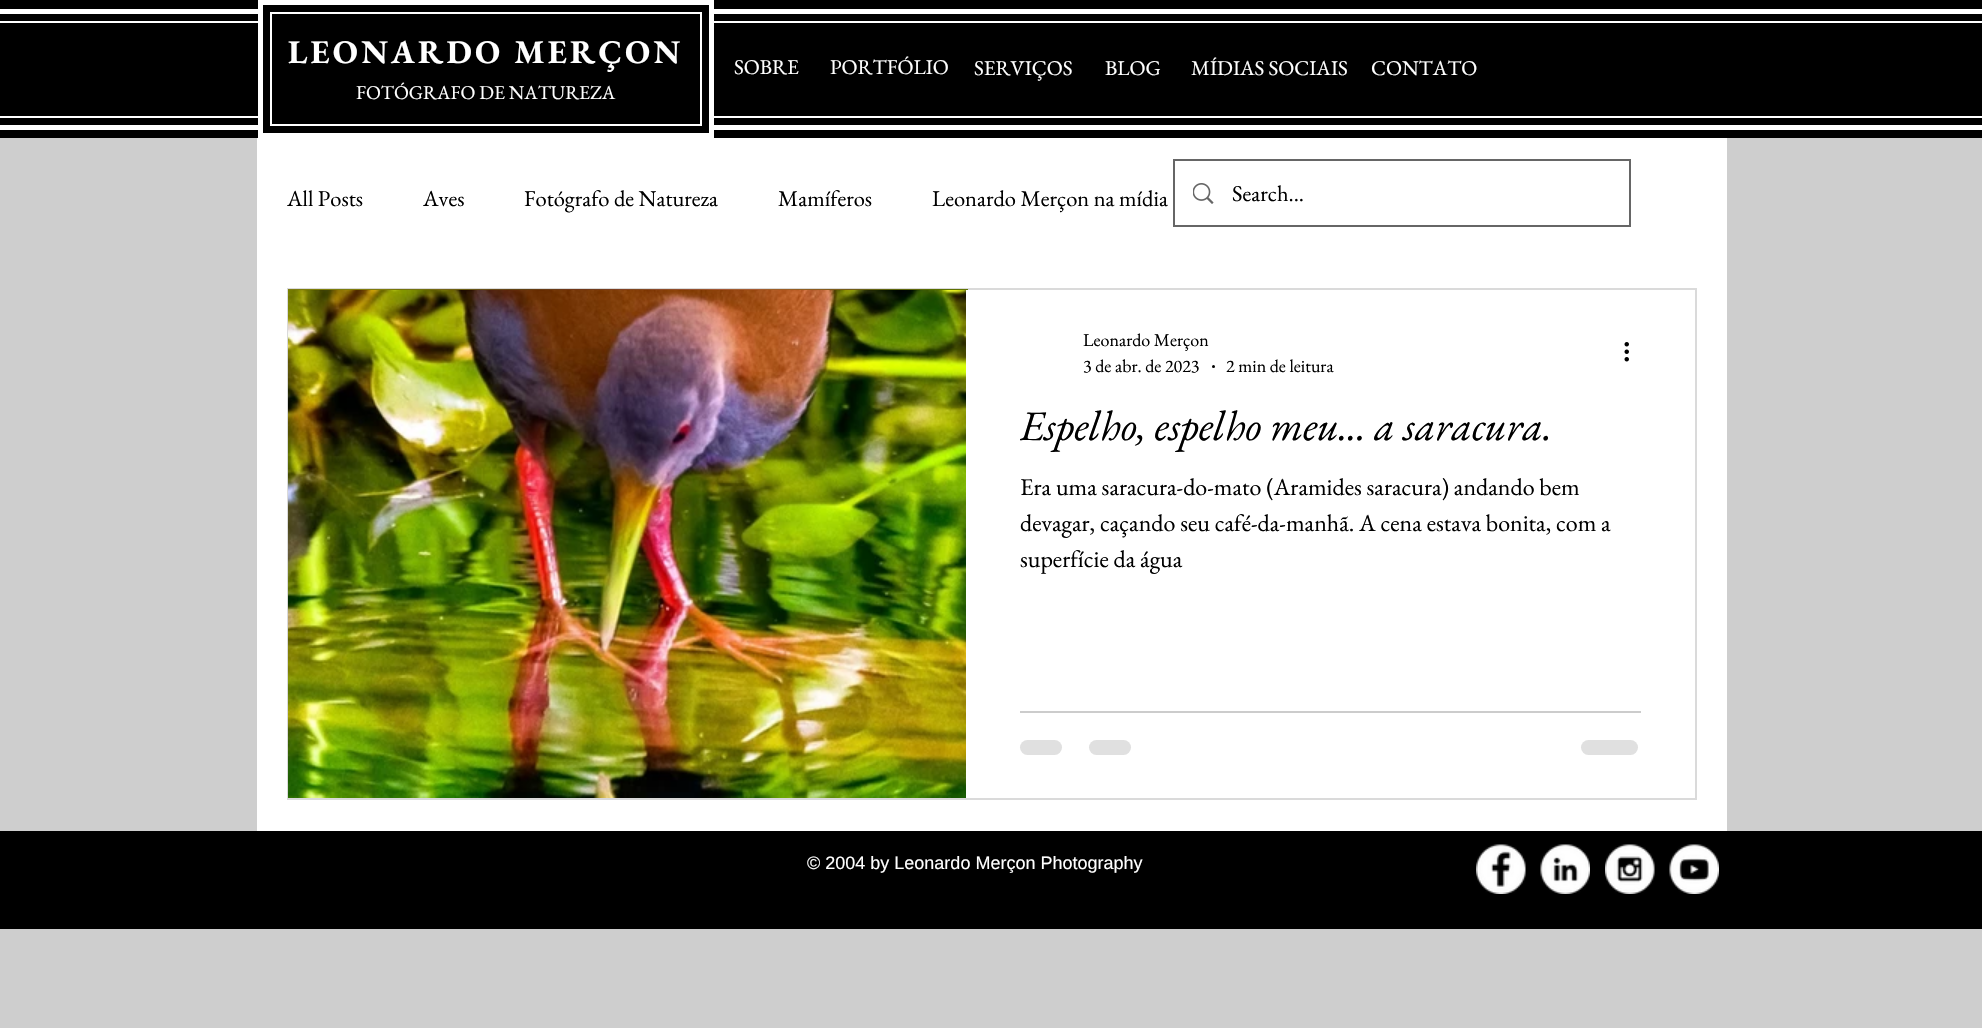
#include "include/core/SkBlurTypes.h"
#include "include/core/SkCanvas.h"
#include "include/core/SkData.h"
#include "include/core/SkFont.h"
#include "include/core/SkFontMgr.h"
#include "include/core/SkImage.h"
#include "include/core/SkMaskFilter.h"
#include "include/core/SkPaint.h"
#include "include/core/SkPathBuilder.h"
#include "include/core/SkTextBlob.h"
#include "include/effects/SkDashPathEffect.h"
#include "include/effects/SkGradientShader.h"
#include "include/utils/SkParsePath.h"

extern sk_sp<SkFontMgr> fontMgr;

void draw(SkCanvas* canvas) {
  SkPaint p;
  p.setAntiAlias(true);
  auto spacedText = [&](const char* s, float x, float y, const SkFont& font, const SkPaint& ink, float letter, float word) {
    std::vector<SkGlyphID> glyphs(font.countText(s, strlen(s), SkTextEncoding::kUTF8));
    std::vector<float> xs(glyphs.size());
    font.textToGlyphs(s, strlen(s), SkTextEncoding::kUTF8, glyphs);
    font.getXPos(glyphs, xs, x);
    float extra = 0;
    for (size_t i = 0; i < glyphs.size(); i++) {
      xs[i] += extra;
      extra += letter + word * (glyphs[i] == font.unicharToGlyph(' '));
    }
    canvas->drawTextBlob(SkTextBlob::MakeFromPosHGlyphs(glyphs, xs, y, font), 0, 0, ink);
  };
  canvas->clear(SkColorSetRGB(206, 206, 206));
  p.setColor(SK_ColorBLACK);
  canvas->drawRect(SkRect::MakeLTRB(0, 0, 1982, 138), p);
  p.setColor(SK_ColorWHITE);
  canvas->drawRect(SkRect::MakeLTRB(0, 9, 1982, 14), p);
  canvas->drawRect(SkRect::MakeLTRB(0, 125, 1982, 130), p);
  canvas->drawRect(SkRect::MakeLTRB(0, 21, 1982, 23), p);
  canvas->drawRect(SkRect::MakeLTRB(0, 116, 1982, 118), p);
  p.setColor(SK_ColorBLACK);
  canvas->drawRect(SkRect::MakeLTRB(263, 9, 709, 130), p);
  p.setStyle(SkPaint::kStroke_Style);
  p.setStrokeWidth(5);
  p.setColor(SK_ColorWHITE);
  canvas->drawRect(SkRect::MakeLTRB(260.5f, 2.5f, 711.5f, 135.5f), p);
  p.setStrokeWidth(2);
  canvas->drawRect(SkRect::MakeLTRB(271, 13, 701, 125), p);
  p.setStyle(SkPaint::kFill_Style);
  canvas->drawRect(SkRect::MakeLTRB(257, 138, 1727, 831), p);
  p.setStyle(SkPaint::kStroke_Style);
  p.setColor(SkColorSetRGB(102, 102, 102));
  canvas->drawRect(SkRect::MakeLTRB(1174, 160, 1630, 226), p);
  canvas->drawImageRect(SkImages::DeferredFromEncodedData(SkData::MakeFromFileName("images/1.png")), SkRect::MakeLTRB(1193, 183, 1214, 204), SkSamplingOptions());
  p.setColor(SkColorSetRGB(218, 218, 218));
  canvas->drawRect(SkRect::MakeLTRB(288, 289, 1696, 799), p);
  canvas->drawImageRect(SkImages::DeferredFromEncodedData(SkData::MakeFromFileName("images/2.png")), SkRect::MakeLTRB(288, 289, 968, 290), SkSamplingOptions());
  canvas->drawImageRect(SkImages::DeferredFromEncodedData(SkData::MakeFromFileName("images/3.png")), SkRect::MakeLTRB(288, 290, 966, 798), SkSamplingOptions());
  p.setStyle(SkPaint::kFill_Style);
  p.setColor(SK_ColorBLACK);
  canvas->drawCircle(1213.5f, 366.5f, 1.5f, p);
  canvas->drawImageRect(SkImages::DeferredFromEncodedData(SkData::MakeFromFileName("images/4.png")), SkRect::MakeLTRB(1624, 342, 1629, 362), SkSamplingOptions());
  p.setColor(SkColorSetRGB(204, 204, 204));
  canvas->drawRect(SkRect::MakeLTRB(1020, 711, 1641, 713), p);
  p.setColor(SkColorSetRGB(224, 224, 224));
  canvas->drawRoundRect(SkRect::MakeLTRB(1020, 740, 1062, 755), 7.5f, 7.5f, p);
  canvas->drawRoundRect(SkRect::MakeLTRB(1089, 740, 1131, 755), 7.5f, 7.5f, p);
  canvas->drawRoundRect(SkRect::MakeLTRB(1581, 740, 1638, 755), 7.5f, 7.5f, p);
  p.setColor(SK_ColorBLACK);
  canvas->drawRect(SkRect::MakeLTRB(0, 831, 1982, 929), p);
  canvas->drawImageRect(SkImages::DeferredFromEncodedData(SkData::MakeFromFileName("images/5.png")), SkRect::MakeLTRB(1476, 844, 1526, 894), SkSamplingOptions());
  canvas->drawImageRect(SkImages::DeferredFromEncodedData(SkData::MakeFromFileName("images/6.png")), SkRect::MakeLTRB(1540, 844, 1590, 894), SkSamplingOptions());
  canvas->drawImageRect(SkImages::DeferredFromEncodedData(SkData::MakeFromFileName("images/7.png")), SkRect::MakeLTRB(1605, 844, 1655, 894), SkSamplingOptions());
  canvas->drawImageRect(SkImages::DeferredFromEncodedData(SkData::MakeFromFileName("images/8.png")), SkRect::MakeLTRB(1669, 844, 1719, 894), SkSamplingOptions());
  SkFont font1(fontMgr->matchFamilyStyle("EB Garamond", SkFontStyle::Bold()), 33);
  font1.setSubpixel(true);
  p.setColor(SK_ColorWHITE);
  spacedText("LEONARDO MERÇON", 288, 63, font1, p, 3.25f, 0);
  SkFont font2(fontMgr->matchFamilyStyle("EB Garamond", SkFontStyle::Normal()), 19.5f);
  font2.setSubpixel(true);
  canvas->drawString("FOTÓGRAFO DE NATUREZA", 356, 99, font2, p);
  SkFont font3(fontMgr->matchFamilyStyle("EB Garamond", SkFontStyle::Normal()), 21);
  font3.setSubpixel(true);
  canvas->drawString("SOBRE", 734, 74, font3, p);
  canvas->drawString("PORTFÓLIO", 830, 74, font3, p);
  canvas->drawString("SERVIÇOS", 974, 75, font3, p);
  canvas->drawString("BLOG", 1105, 75, font3, p);
  canvas->drawString("MÍDIAS SOCIAIS", 1191, 75, font3, p);
  canvas->drawString("CONTATO", 1371, 75, font3, p);
  SkFont font4(fontMgr->matchFamilyStyle("EB Garamond", SkFontStyle::Normal()), 22.5f);
  font4.setSubpixel(true);
  p.setColor(SK_ColorBLACK);
  canvas->drawString("Search...", 1232, 201, font4, p);
  canvas->drawString("All Posts", 287, 206, font4, p);
  canvas->drawString("Aves", 423, 206, font4, p);
  canvas->drawString("Fotógrafo de Natureza", 524, 206, font4, p);
  canvas->drawString("Mamíferos", 778, 206, font4, p);
  canvas->drawString("Leonardo Merçon na mídia", 932, 206, font4, p);
  SkFont font5(fontMgr->matchFamilyStyle("EB Garamond", SkFontStyle::Normal()), 18);
  font5.setSubpixel(true);
  canvas->drawString("Leonardo Merçon", 1083, 346, font5, p);
  canvas->drawString("3 de abr. de 2023", 1083, 372, font5, p);
  canvas->drawString("2 min de leitura", 1226, 372, font5, p);
  canvas->save();
  canvas->clipRect(SkRect::MakeLTRB(1020, 398, 1641, 452));
  SkFont font6(fontMgr->matchFamilyStyle("EB Garamond", SkFontStyle::Italic()), 42);
  font6.setSubpixel(true);
  canvas->drawString("Espelho, espelho meu... a saracura.", 1020, 440, font6, p);
  canvas->restore();
  SkFont font7(fontMgr->matchFamilyStyle("EB Garamond", SkFontStyle::Normal()), 24);
  font7.setSubpixel(true);
  canvas->drawString("Era uma saracura-do-mato (Aramides saracura) andando bem", 1020, 495, font7, p);
  canvas->drawString("devagar, caçando seu café-da-manhã. A cena estava bonita, com a", 1020, 531, font7, p);
  canvas->drawString("superfície da água", 1020, 567, font7, p);
  SkFont font8(fontMgr->matchFamilyStyle("Liberation Sans", SkFontStyle::Normal()), 18);
  font8.setSubpixel(true);
  p.setColor(SK_ColorWHITE);
  canvas->drawString("© 2004 by Leonardo Merçon Photography", 807, 869, font8, p);
}
